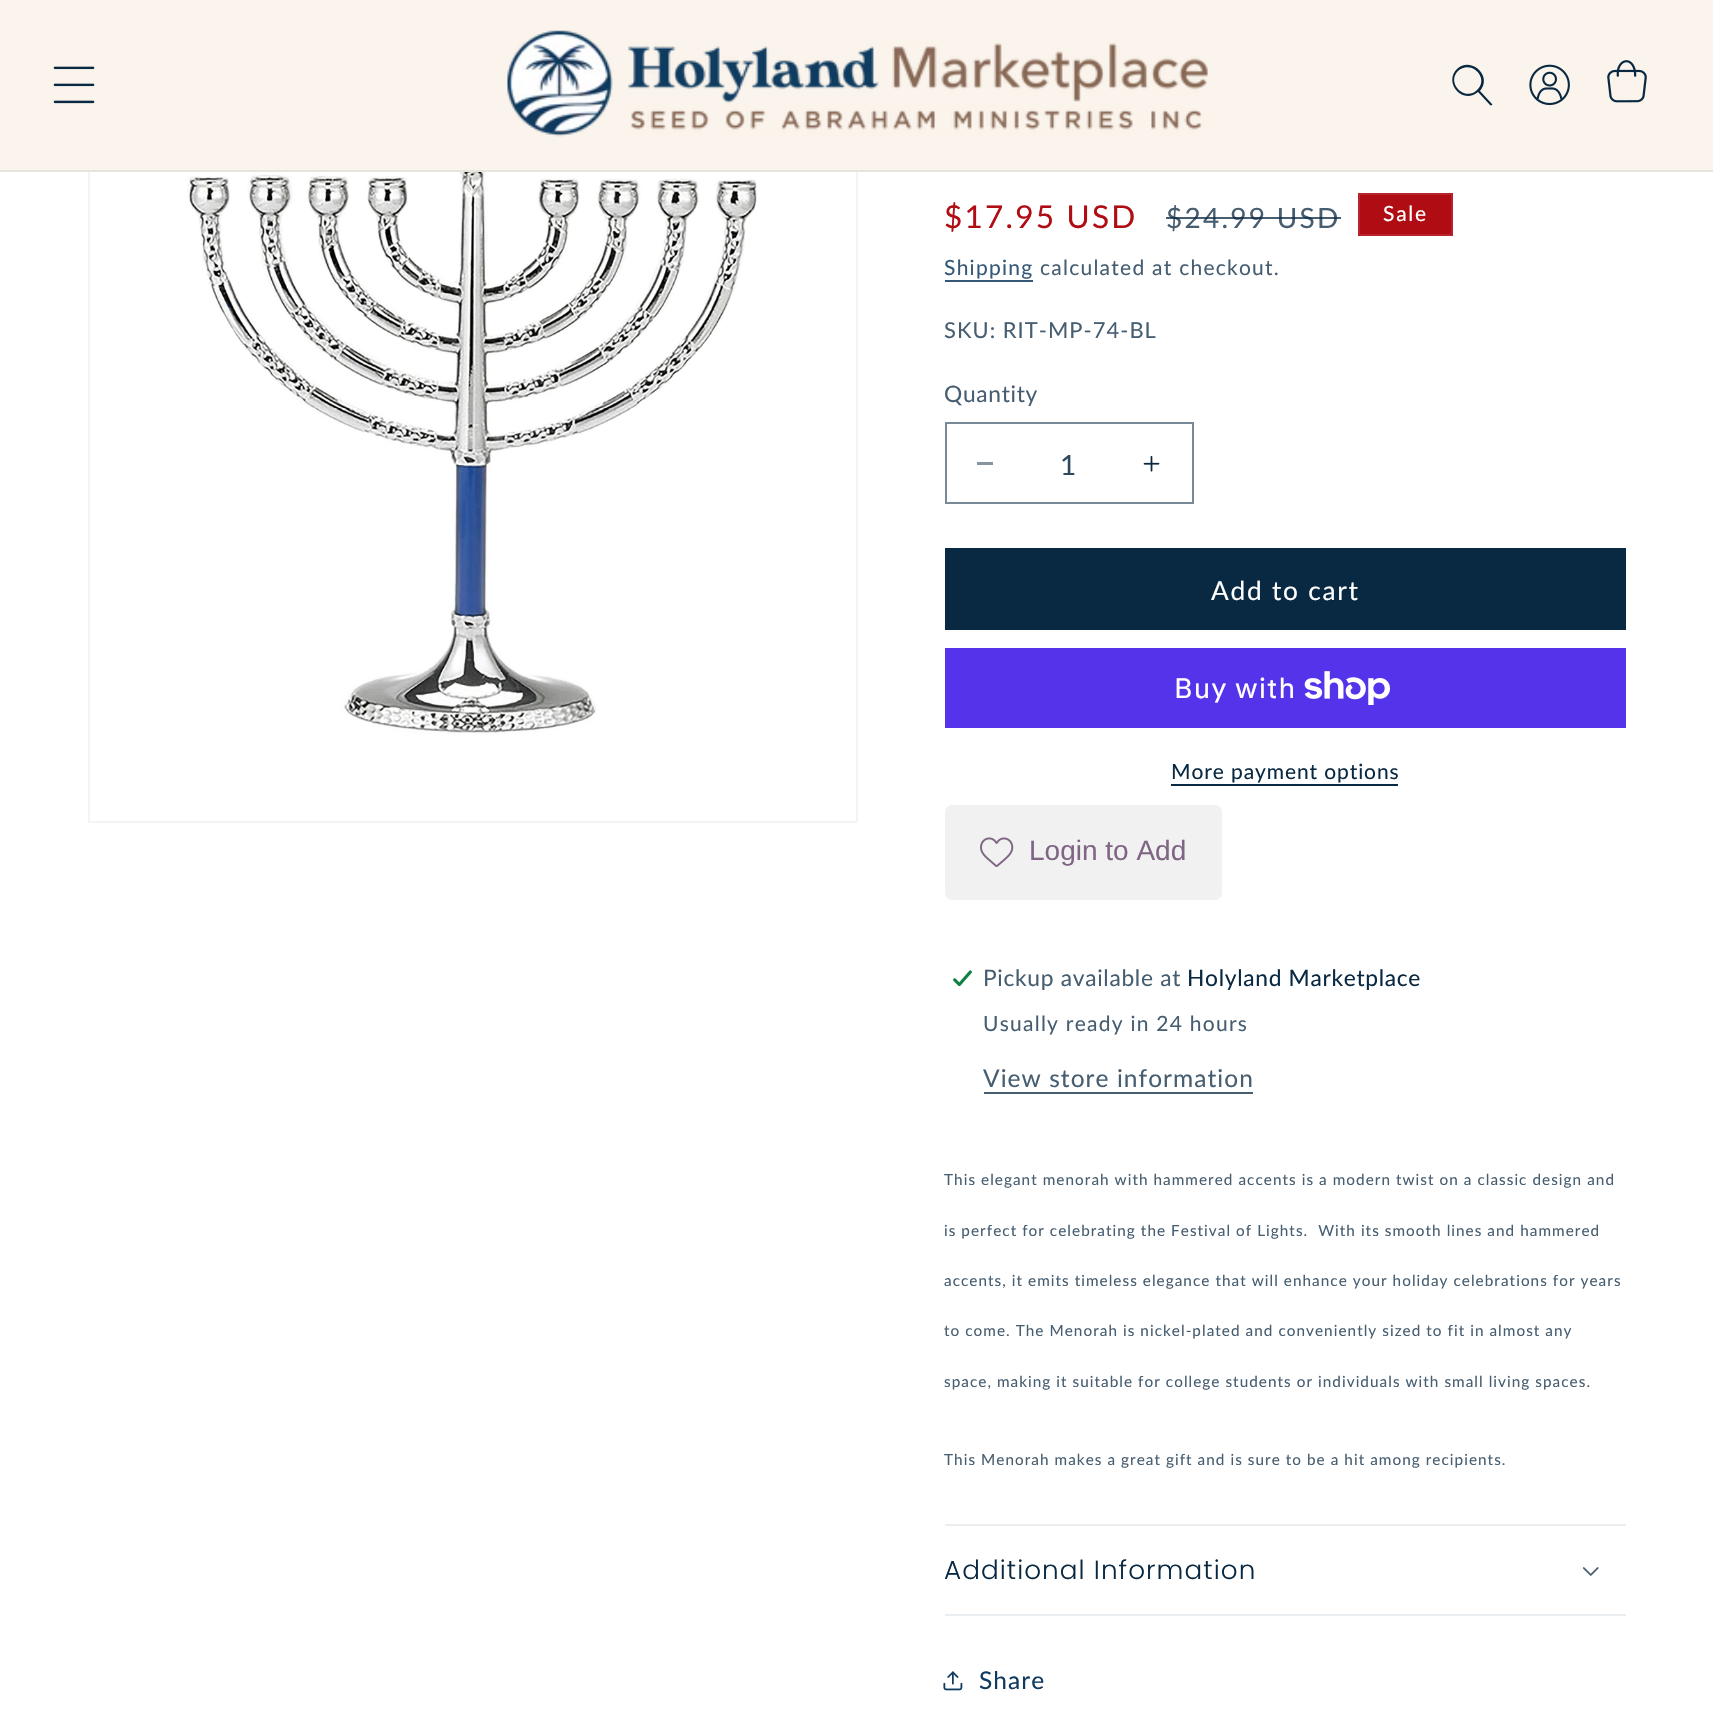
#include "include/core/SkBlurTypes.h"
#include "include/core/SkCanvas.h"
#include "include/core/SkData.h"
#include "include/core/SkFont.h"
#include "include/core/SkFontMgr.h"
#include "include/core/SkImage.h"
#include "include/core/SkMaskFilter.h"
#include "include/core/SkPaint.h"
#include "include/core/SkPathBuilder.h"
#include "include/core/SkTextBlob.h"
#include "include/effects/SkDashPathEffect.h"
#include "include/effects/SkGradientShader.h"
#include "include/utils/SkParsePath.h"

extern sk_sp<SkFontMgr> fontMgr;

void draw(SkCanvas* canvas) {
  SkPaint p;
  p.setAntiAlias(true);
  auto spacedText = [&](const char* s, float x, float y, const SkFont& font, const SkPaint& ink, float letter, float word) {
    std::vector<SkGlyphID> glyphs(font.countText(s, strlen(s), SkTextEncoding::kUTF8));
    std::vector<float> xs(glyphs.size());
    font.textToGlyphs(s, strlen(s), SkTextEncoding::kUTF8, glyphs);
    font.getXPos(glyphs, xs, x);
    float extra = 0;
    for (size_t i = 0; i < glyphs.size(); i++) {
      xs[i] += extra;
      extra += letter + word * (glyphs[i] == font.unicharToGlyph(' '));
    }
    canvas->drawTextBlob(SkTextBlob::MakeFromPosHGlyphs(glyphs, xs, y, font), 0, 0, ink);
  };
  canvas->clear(SK_ColorWHITE);
  p.setStyle(SkPaint::kStroke_Style);
  p.setStrokeWidth(2);
  p.setColor(SkColorSetRGB(243, 244, 246));
  canvas->drawRect(SkRect::MakeLTRB(89, 54, 857, 822), p);
  p.setStyle(SkPaint::kFill_Style);
  p.setColor(SkColorSetRGB(250, 244, 236));
  canvas->drawRect(SkRect::MakeLTRB(0, 0, 1713, 170), p);
  p.setColor(SkColorSetRGB(231, 228, 222));
  canvas->drawRect(SkRect::MakeLTRB(0, 170, 1713, 172), p);
  canvas->drawImageRect(SkImages::DeferredFromEncodedData(SkData::MakeFromFileName("images/1.png")), SkRect::MakeLTRB(53, 66, 95, 104), SkSamplingOptions());
  canvas->drawImageRect(SkImages::DeferredFromEncodedData(SkData::MakeFromFileName("images/2.png")), SkRect::MakeLTRB(507, 30, 1208, 137), SkSamplingOptions());
  p.setColor(SkColorSetRGB(9, 40, 65));
  canvas->drawPath(SkPathBuilder(SkPathFillType::kEvenOdd).moveTo(1477, 90).cubicTo(1465, 102, 1446, 83, 1458, 71).cubicTo(1471, 59, 1490, 78, 1477, 90).moveTo(1478, 92).cubicTo(1463, 105, 1443, 83, 1457, 69).cubicTo(1471, 56, 1493, 76, 1480, 91).lineTo(1492, 104).cubicTo(1493, 105, 1491, 106, 1490, 105).close().detach(), p);
  canvas->drawImageRect(SkImages::DeferredFromEncodedData(SkData::MakeFromFileName("images/3.png")), SkRect::MakeLTRB(1529, 64, 1570, 106), SkSamplingOptions());
  canvas->drawImageRect(SkImages::DeferredFromEncodedData(SkData::MakeFromFileName("images/4.png")), SkRect::MakeLTRB(1607, 60, 1647, 103), SkSamplingOptions());
  canvas->drawImageRect(SkImages::DeferredFromEncodedData(SkData::MakeFromFileName("images/5.png")), SkRect::MakeLTRB(187, 172, 758, 734), SkSamplingOptions());
  p.setColor(SkColorSetRGB(176, 12, 19));
  canvas->drawRect(SkRect::MakeLTRB(1359, 194, 1452, 235), p);
  p.setStyle(SkPaint::kStroke_Style);
  p.setColor(SkColorSetRGB(184, 36, 43));
  canvas->drawRect(SkRect::MakeLTRB(1359, 194, 1452, 235), p);
  p.setStyle(SkPaint::kFill_Style);
  p.setColor(SkColorSetRGB(53, 88, 120));
  canvas->drawRect(SkRect::MakeLTRB(945, 280, 1033, 282), p);
  p.setColor(SkColorSetRGB(132, 148, 160));
  canvas->drawRect(SkRect::MakeLTRB(977, 462, 993, 465), p);
  canvas->drawImageRect(SkImages::DeferredFromEncodedData(SkData::MakeFromFileName("images/6.png")), SkRect::MakeLTRB(1143, 455, 1160, 472), SkSamplingOptions());
  p.setStyle(SkPaint::kStroke_Style);
  p.setColor(SkColorSetRGB(120, 137, 151));
  canvas->drawRect(SkRect::MakeLTRB(946, 423, 1193, 503), p);
  p.setStyle(SkPaint::kFill_Style);
  p.setColor(SkColorSetRGB(9, 40, 65));
  canvas->drawRect(SkRect::MakeLTRB(945, 548, 1626, 630), p);
  p.setColor(SkColorSetRGB(84, 51, 235));
  canvas->drawRect(SkRect::MakeLTRB(945, 648, 1626, 728), p);
  canvas->drawImageRect(SkImages::DeferredFromEncodedData(SkData::MakeFromFileName("images/7.png")), SkRect::MakeLTRB(1304, 671, 1390, 705), SkSamplingOptions());
  p.setColor(SkColorSetRGB(9, 40, 65));
  canvas->drawRect(SkRect::MakeLTRB(1171, 784, 1398, 786), p);
  p.setColor(SkColorSetRGB(241, 241, 241));
  canvas->drawRoundRect(SkRect::MakeLTRB(945, 805, 1222, 900), 7, 7, p);
  canvas->drawImageRect(SkImages::DeferredFromEncodedData(SkData::MakeFromFileName("images/8.png")), SkRect::MakeLTRB(980, 837, 1014, 867), SkSamplingOptions());
  canvas->drawImageRect(SkImages::DeferredFromEncodedData(SkData::MakeFromFileName("images/9.png")), SkRect::MakeLTRB(953, 970, 972, 987), SkSamplingOptions());
  p.setColor(SkColorSetRGB(71, 94, 113));
  canvas->drawRect(SkRect::MakeLTRB(984, 1092, 1253, 1094), p);
  p.setColor(SkColorSetRGB(235, 238, 240));
  canvas->drawRect(SkRect::MakeLTRB(945, 1524, 1626, 1526), p);
  canvas->drawRect(SkRect::MakeLTRB(945, 1614, 1626, 1616), p);
  canvas->drawImageRect(SkImages::DeferredFromEncodedData(SkData::MakeFromFileName("images/10.png")), SkRect::MakeLTRB(1583, 1567, 1599, 1576), SkSamplingOptions());
  canvas->drawImageRect(SkImages::DeferredFromEncodedData(SkData::MakeFromFileName("images/11.png")), SkRect::MakeLTRB(943, 1671, 963, 1691), SkSamplingOptions());
  SkFont font1(fontMgr->matchFamilyStyle("Lato", SkFontStyle::Normal()), 31.5f);
  font1.setSubpixel(true);
  p.setColor(SkColorSetRGB(176, 12, 19));
  spacedText("$17.95 USD", 944, 228, font1, p, 2.25f, 0);
  SkFont font2(fontMgr->matchFamilyStyle("Lato", SkFontStyle::Normal()), 28);
  font2.setSubpixel(true);
  p.setColor(SkColorSetRGB(71, 94, 113));
  spacedText("$24.99 USD", 1166, 228, font2, p, 2.25f, 0);
  p.setColor(SkColorSetARGB(191, 9, 40, 65));
  canvas->drawRect(SkRect::MakeLTRB(1166, 217, 1341, 219), p);
  SkFont font3(fontMgr->matchFamilyStyle("Lato", SkFontStyle::Normal()), 21);
  font3.setSubpixel(true);
  p.setColor(SK_ColorWHITE);
  spacedText("Sale", 1383, 221, font3, p, 1.75f, 0);
  p.setColor(SkColorSetRGB(53, 88, 120));
  spacedText("Shipping", 944, 275, font3, p, 1.25f, 0);
  p.setColor(SkColorSetRGB(71, 94, 113));
  spacedText("calculated at checkout.", 1040, 275, font3, p, 1.25f, 0);
  SkFont font4(fontMgr->matchFamilyStyle("Lato", SkFontStyle::Normal()), 21.9f);
  font4.setSubpixel(true);
  spacedText("SKU: RIT-MP-74-BL", 944, 338, font4, p, 1.05f, 0);
  SkFont font5(fontMgr->matchFamilyStyle("Lato", SkFontStyle::Normal()), 22.75f);
  font5.setSubpixel(true);
  spacedText("Quantity", 944, 402, font5, p, 0.7f, 0);
  p.setColor(SkColorSetRGB(46, 72, 94));
  canvas->drawString("1", 1060, 475, font2, p);
  SkFont font6(fontMgr->matchFamilyStyle("Lato", SkFontStyle::Normal()), 26.25f);
  font6.setSubpixel(true);
  p.setColor(SK_ColorWHITE);
  spacedText("Add to cart", 1211, 600, font6, p, 1.75f, 0);
  SkFont font7(fontMgr->matchFamilyStyle("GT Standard", SkFontStyle::Normal()), 28);
  font7.setSubpixel(true);
  spacedText("Buy with", 1174, 698, font7, p, 1.05f, 0);
  p.setColor(SkColorSetRGB(9, 40, 65));
  spacedText("More payment options", 1171, 779, font3, p, 0.9f, 0);
  SkFont font8(fontMgr->matchFamilyStyle("Liberation Sans", SkFontStyle::Normal()), 28);
  font8.setSubpixel(true);
  p.setColor(SkColorSetRGB(128, 101, 133));
  canvas->drawString("Login to Add", 1029, 860, font8, p);
  p.setColor(SkColorSetRGB(71, 94, 113));
  spacedText("Pickup available at", 983, 986, font5, p, 0.7f, 0);
  p.setColor(SkColorSetRGB(9, 40, 65));
  spacedText("Holyland Marketplace", 1187, 986, font5, p, 0.7f, 0);
  p.setColor(SkColorSetRGB(71, 94, 113));
  spacedText("Usually ready in 24 hours", 983, 1031, font3, p, 1.25f, 0);
  SkFont font9(fontMgr->matchFamilyStyle("Lato", SkFontStyle::Normal()), 24.5f);
  font9.setSubpixel(true);
  spacedText("View store information", 983, 1087, font9, p, 1.05f, 0);
  SkFont font10(fontMgr->matchFamilyStyle("Lato", SkFontStyle::Normal()), 15.3f);
  font10.setSubpixel(true);
  spacedText("This elegant menorah with hammered accents is a modern twist on a classic design and", 944, 1185, font10, p, 1.05f, 0);
  spacedText("is perfect for celebrating the Festival of Lights.  With its smooth lines and hammered", 944, 1236, font10, p, 1.05f, 0);
  spacedText("accents, it emits timeless elegance that will enhance your holiday celebrations for years", 944, 1286, font10, p, 1.05f, 0);
  spacedText("to come. The Menorah is nickel-plated and conveniently sized to fit in almost any", 944, 1336, font10, p, 1.05f, 0);
  spacedText("space, making it suitable for college students or individuals with small living spaces.", 944, 1387, font10, p, 1.05f, 0);
  spacedText("This Menorah makes a great gift and is sure to be a hit among recipients.", 944, 1465, font10, p, 1.05f, 0);
  SkFont font11(fontMgr->matchFamilyStyle("Poppins", SkFontStyle(300, SkFontStyle::kNormal_Width, SkFontStyle::kUpright_Slant)), 26.25f);
  font11.setSubpixel(true);
  p.setColor(SkColorSetRGB(9, 40, 65));
  spacedText("Additional Information", 944, 1579, font11, p, 1.05f, 0);
  p.setColor(SkColorSetRGB(17, 58, 96));
  spacedText("Share", 979, 1689, font9, p, 1.05f, 0);
}
